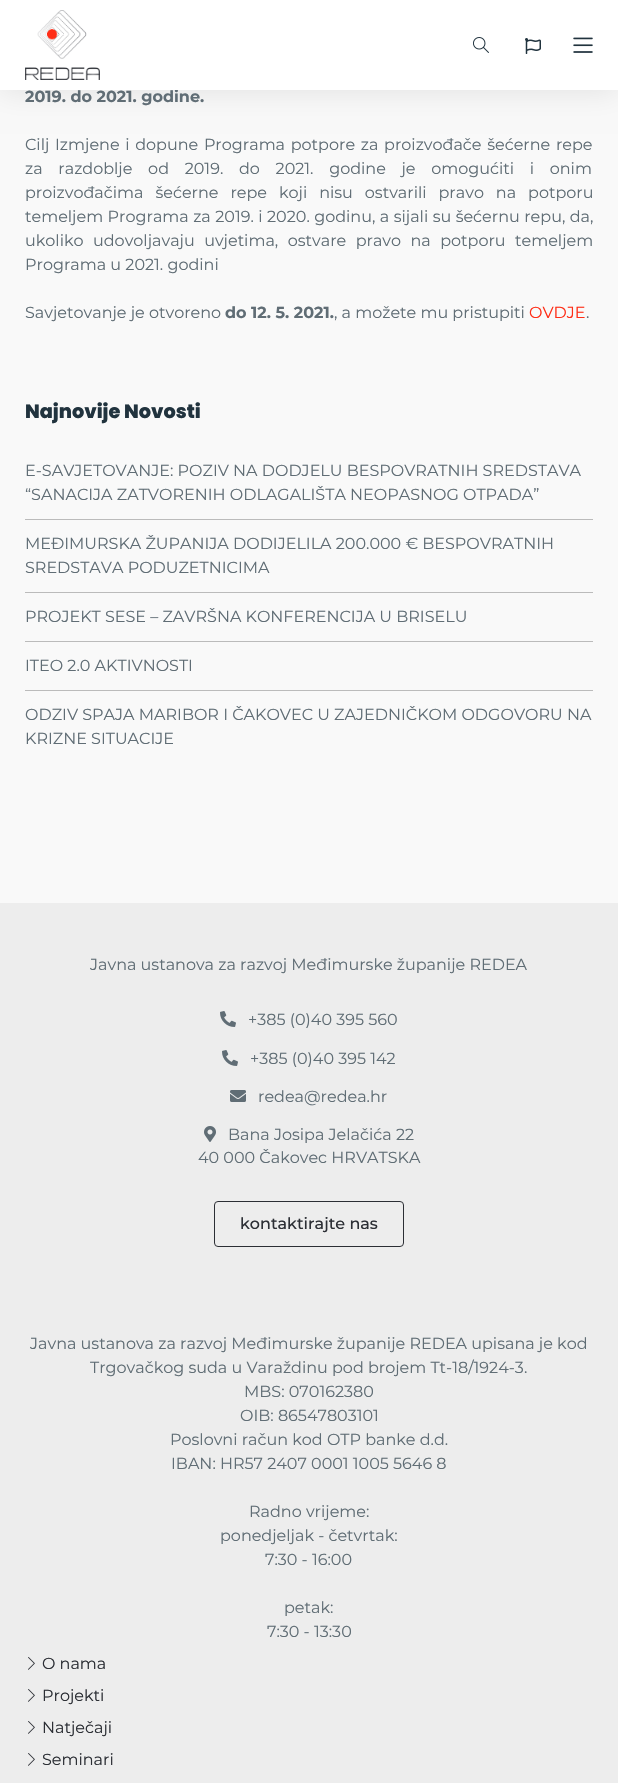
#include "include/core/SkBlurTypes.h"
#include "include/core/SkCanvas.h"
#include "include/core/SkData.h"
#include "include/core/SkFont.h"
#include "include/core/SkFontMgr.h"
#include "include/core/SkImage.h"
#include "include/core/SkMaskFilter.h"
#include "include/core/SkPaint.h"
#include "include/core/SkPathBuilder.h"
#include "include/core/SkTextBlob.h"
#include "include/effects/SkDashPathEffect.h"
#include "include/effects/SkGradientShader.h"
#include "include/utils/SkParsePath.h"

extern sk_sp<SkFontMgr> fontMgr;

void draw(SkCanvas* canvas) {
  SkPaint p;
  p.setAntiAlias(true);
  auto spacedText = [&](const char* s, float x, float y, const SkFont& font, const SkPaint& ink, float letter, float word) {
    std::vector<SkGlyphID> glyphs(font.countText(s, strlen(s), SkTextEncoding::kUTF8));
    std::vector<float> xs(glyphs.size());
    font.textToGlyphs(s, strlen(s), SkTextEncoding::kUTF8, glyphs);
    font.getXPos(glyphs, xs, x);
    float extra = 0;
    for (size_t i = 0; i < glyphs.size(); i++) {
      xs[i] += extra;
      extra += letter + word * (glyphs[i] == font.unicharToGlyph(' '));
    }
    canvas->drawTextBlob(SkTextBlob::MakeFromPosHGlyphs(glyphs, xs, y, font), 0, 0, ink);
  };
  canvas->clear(SkColorSetRGB(249, 249, 249));
  p.setColor(SkColorSetARGB(23, 0, 0, 0));
  p.setMaskFilter(SkMaskFilter::MakeBlur(kNormal_SkBlurStyle, 14));
  canvas->drawRect(SkRect::MakeLTRB(0, 2, 618, 92), p);
  p.setMaskFilter(nullptr);
  p.setColor(SkColorSetRGB(187, 187, 187));
  canvas->drawRect(SkRect::MakeLTRB(25, 519, 593, 520), p);
  canvas->drawRect(SkRect::MakeLTRB(25, 592, 593, 593), p);
  canvas->drawRect(SkRect::MakeLTRB(25, 641, 593, 642), p);
  canvas->drawRect(SkRect::MakeLTRB(25, 690, 593, 691), p);
  p.setColor(SkColorSetRGB(237, 237, 237));
  canvas->drawRect(SkRect::MakeLTRB(0, 903, 618, 1783), p);
  canvas->drawImageRect(SkImages::DeferredFromEncodedData(SkData::MakeFromFileName("images/5.png")), SkRect::MakeLTRB(220, 1011, 236, 1027), SkSamplingOptions());
  canvas->drawImageRect(SkImages::DeferredFromEncodedData(SkData::MakeFromFileName("images/5.png")), SkRect::MakeLTRB(222, 1050, 238, 1066), SkSamplingOptions());
  canvas->drawImageRect(SkImages::DeferredFromEncodedData(SkData::MakeFromFileName("images/6.png")), SkRect::MakeLTRB(230, 1090, 246, 1102), SkSamplingOptions());
  canvas->drawImageRect(SkImages::DeferredFromEncodedData(SkData::MakeFromFileName("images/7.png")), SkRect::MakeLTRB(204, 1126, 216, 1142), SkSamplingOptions());
  p.setStyle(SkPaint::kStroke_Style);
  p.setStrokeWidth(1);
  p.setColor(SkColorSetRGB(44, 47, 53));
  canvas->drawRoundRect(SkRect::MakeLTRB(214.5f, 1201.5f, 403.5f, 1246.5f), 3.5f, 3.5f, p);
  canvas->drawImageRect(SkImages::DeferredFromEncodedData(SkData::MakeFromFileName("images/8.png")), SkRect::MakeLTRB(28, 1657, 35, 1670), SkSamplingOptions());
  canvas->drawImageRect(SkImages::DeferredFromEncodedData(SkData::MakeFromFileName("images/8.png")), SkRect::MakeLTRB(28, 1689, 35, 1702), SkSamplingOptions());
  canvas->drawImageRect(SkImages::DeferredFromEncodedData(SkData::MakeFromFileName("images/8.png")), SkRect::MakeLTRB(28, 1721, 35, 1734), SkSamplingOptions());
  canvas->drawImageRect(SkImages::DeferredFromEncodedData(SkData::MakeFromFileName("images/8.png")), SkRect::MakeLTRB(28, 1753, 35, 1766), SkSamplingOptions());
  SkFont font1(fontMgr->matchFamilyStyle("Montserrat", SkFontStyle::Bold()), 16);
  font1.setSubpixel(true);
  p.setStyle(SkPaint::kFill_Style);
  p.setColor(SkColorSetRGB(96, 109, 117));
  canvas->drawString("2019. do 2021. godine.", 25, 102, font1, p);
  p.setColor(SK_ColorWHITE);
  canvas->drawRect(SkRect::MakeLTRB(0, 0, 618, 90), p);
  canvas->drawImageRect(SkImages::DeferredFromEncodedData(SkData::MakeFromFileName("images/4.png")), SkRect::MakeLTRB(573, 37, 593, 53), SkSamplingOptions());
  canvas->drawImageRect(SkImages::DeferredFromEncodedData(SkData::MakeFromFileName("images/3.png")), SkRect::MakeLTRB(525, 38, 541, 54), SkSamplingOptions());
  canvas->drawImageRect(SkImages::DeferredFromEncodedData(SkData::MakeFromFileName("images/2.png")), SkRect::MakeLTRB(473, 37, 489, 53), SkSamplingOptions());
  canvas->drawImageRect(SkImages::DeferredFromEncodedData(SkData::MakeFromFileName("images/1.png")), SkRect::MakeLTRB(25, 10, 100, 80), SkSamplingOptions());
  SkFont font2(fontMgr->matchFamilyStyle("Montserrat", SkFontStyle::Normal()), 16);
  font2.setSubpixel(true);
  p.setColor(SkColorSetRGB(96, 109, 117));
  spacedText("Cilj Izmjene i dopune Programa potpore za proizvođače šećerne repe", 25, 150, font2, p, 0, 1.5f);
  spacedText("za razdoblje od 2019. do 2021. godine je omogućiti i onim", 25, 174, font2, p, 0, 11.5f);
  spacedText("proizvođačima šećerne repe koji nisu ostvarili pravo na potporu", 25, 198, font2, p, 0, 7.75f);
  spacedText("temeljem Programa za 2019. i 2020. godinu, a sijali su šećernu repu, da,", 25, 222, font2, p, 0, 0.25f);
  spacedText("ukoliko udovoljavaju uvjetima, ostvare pravo na potporu temeljem", 25, 246, font2, p, 0, 5.25f);
  canvas->drawString("Programa u 2021. godini", 25, 270, font2, p);
  canvas->drawString("Savjetovanje je otvoreno", 25, 318, font2, p);
  canvas->drawString("do 12. 5. 2021.", 225, 318, font1, p);
  canvas->drawString(", a možete mu pristupiti", 334, 318, font2, p);
  p.setColor(SkColorSetRGB(255, 45, 22));
  canvas->drawString("OVDJE", 529, 318, font2, p);
  p.setColor(SkColorSetRGB(96, 109, 117));
  canvas->drawString(".", 586, 318, font2, p);
  SkFont font3(fontMgr->matchFamilyStyle("Poppins", SkFontStyle(800, SkFontStyle::kNormal_Width, SkFontStyle::kUpright_Slant)), 19.25f);
  font3.setSubpixel(true);
  p.setColor(SkColorSetRGB(33, 51, 62));
  canvas->drawString("Najnovije Novosti", 25, 418, font3, p);
  p.setColor(SkColorSetRGB(96, 109, 117));
  canvas->drawString("E-SAVJETOVANJE: POZIV NA DODJELU BESPOVRATNIH SREDSTAVA", 25, 476, font2, p);
  canvas->drawString("“SANACIJA ZATVORENIH ODLAGALIŠTA NEOPASNOG OTPADA”", 25, 500, font2, p);
  canvas->drawString("MEĐIMURSKA ŽUPANIJA DODIJELILA 200.000 € BESPOVRATNIH", 25, 549, font2, p);
  canvas->drawString("SREDSTAVA PODUZETNICIMA", 25, 573, font2, p);
  canvas->drawString("PROJEKT SESE – ZAVRŠNA KONFERENCIJA U BRISELU", 25, 622, font2, p);
  canvas->drawString("ITEO 2.0 AKTIVNOSTI", 25, 671, font2, p);
  canvas->drawString("ODZIV SPAJA MARIBOR I ČAKOVEC U ZAJEDNIČKOM ODGOVORU NA", 25, 720, font2, p);
  canvas->drawString("KRIZNE SITUACIJE", 25, 744, font2, p);
  canvas->drawString("Javna ustanova za razvoj Međimurske županije REDEA", 90, 970, font2, p);
  canvas->drawString("+385 (0)40 395 560", 248, 1025, font2, p);
  canvas->drawString("+385 (0)40 395 142", 250, 1064, font2, p);
  canvas->drawString("redea@redea.hr", 258, 1102, font2, p);
  canvas->drawString("Bana Josipa Jelačića 22", 228, 1140, font2, p);
  canvas->drawString("40 000 Čakovec HRVATSKA", 198, 1163, font2, p);
  SkFont font4(fontMgr->matchFamilyStyle("Montserrat", SkFontStyle(500, SkFontStyle::kNormal_Width, SkFontStyle::kUpright_Slant)), 16);
  font4.setSubpixel(true);
  p.setColor(SkColorSetRGB(44, 47, 53));
  canvas->drawString("kontaktirajte nas", 240, 1229, font4, p);
  p.setColor(SkColorSetRGB(96, 109, 117));
  canvas->drawString("Javna ustanova za razvoj Međimurske županije REDEA upisana je kod", 30, 1349, font2, p);
  canvas->drawString("Trgovačkog suda u Varaždinu pod brojem Tt-18/1924-3.", 90, 1373, font2, p);
  canvas->drawString("MBS: 070162380", 244, 1397, font2, p);
  canvas->drawString("OIB: 86547803101", 240, 1421, font2, p);
  canvas->drawString("Poslovni račun kod OTP banke d.d.", 170, 1445, font2, p);
  canvas->drawString("IBAN: HR57 2407 0001 1005 5646 8", 171, 1469, font2, p);
  canvas->drawString("Radno vrijeme:", 249, 1517, font2, p);
  canvas->drawString("ponedjeljak - četvrtak:", 220, 1541, font2, p);
  canvas->drawString("7:30 - 16:00", 265, 1565, font2, p);
  canvas->drawString("petak:", 284, 1613, font2, p);
  canvas->drawString("7:30 - 13:30", 267, 1637, font2, p);
  p.setColor(SkColorSetRGB(44, 47, 53));
  canvas->drawString("O nama", 42, 1669, font2, p);
  canvas->drawString("Projekti", 42, 1701, font2, p);
  canvas->drawString("Natječaji", 42, 1733, font2, p);
  canvas->drawString("Seminari", 42, 1765, font2, p);
}
